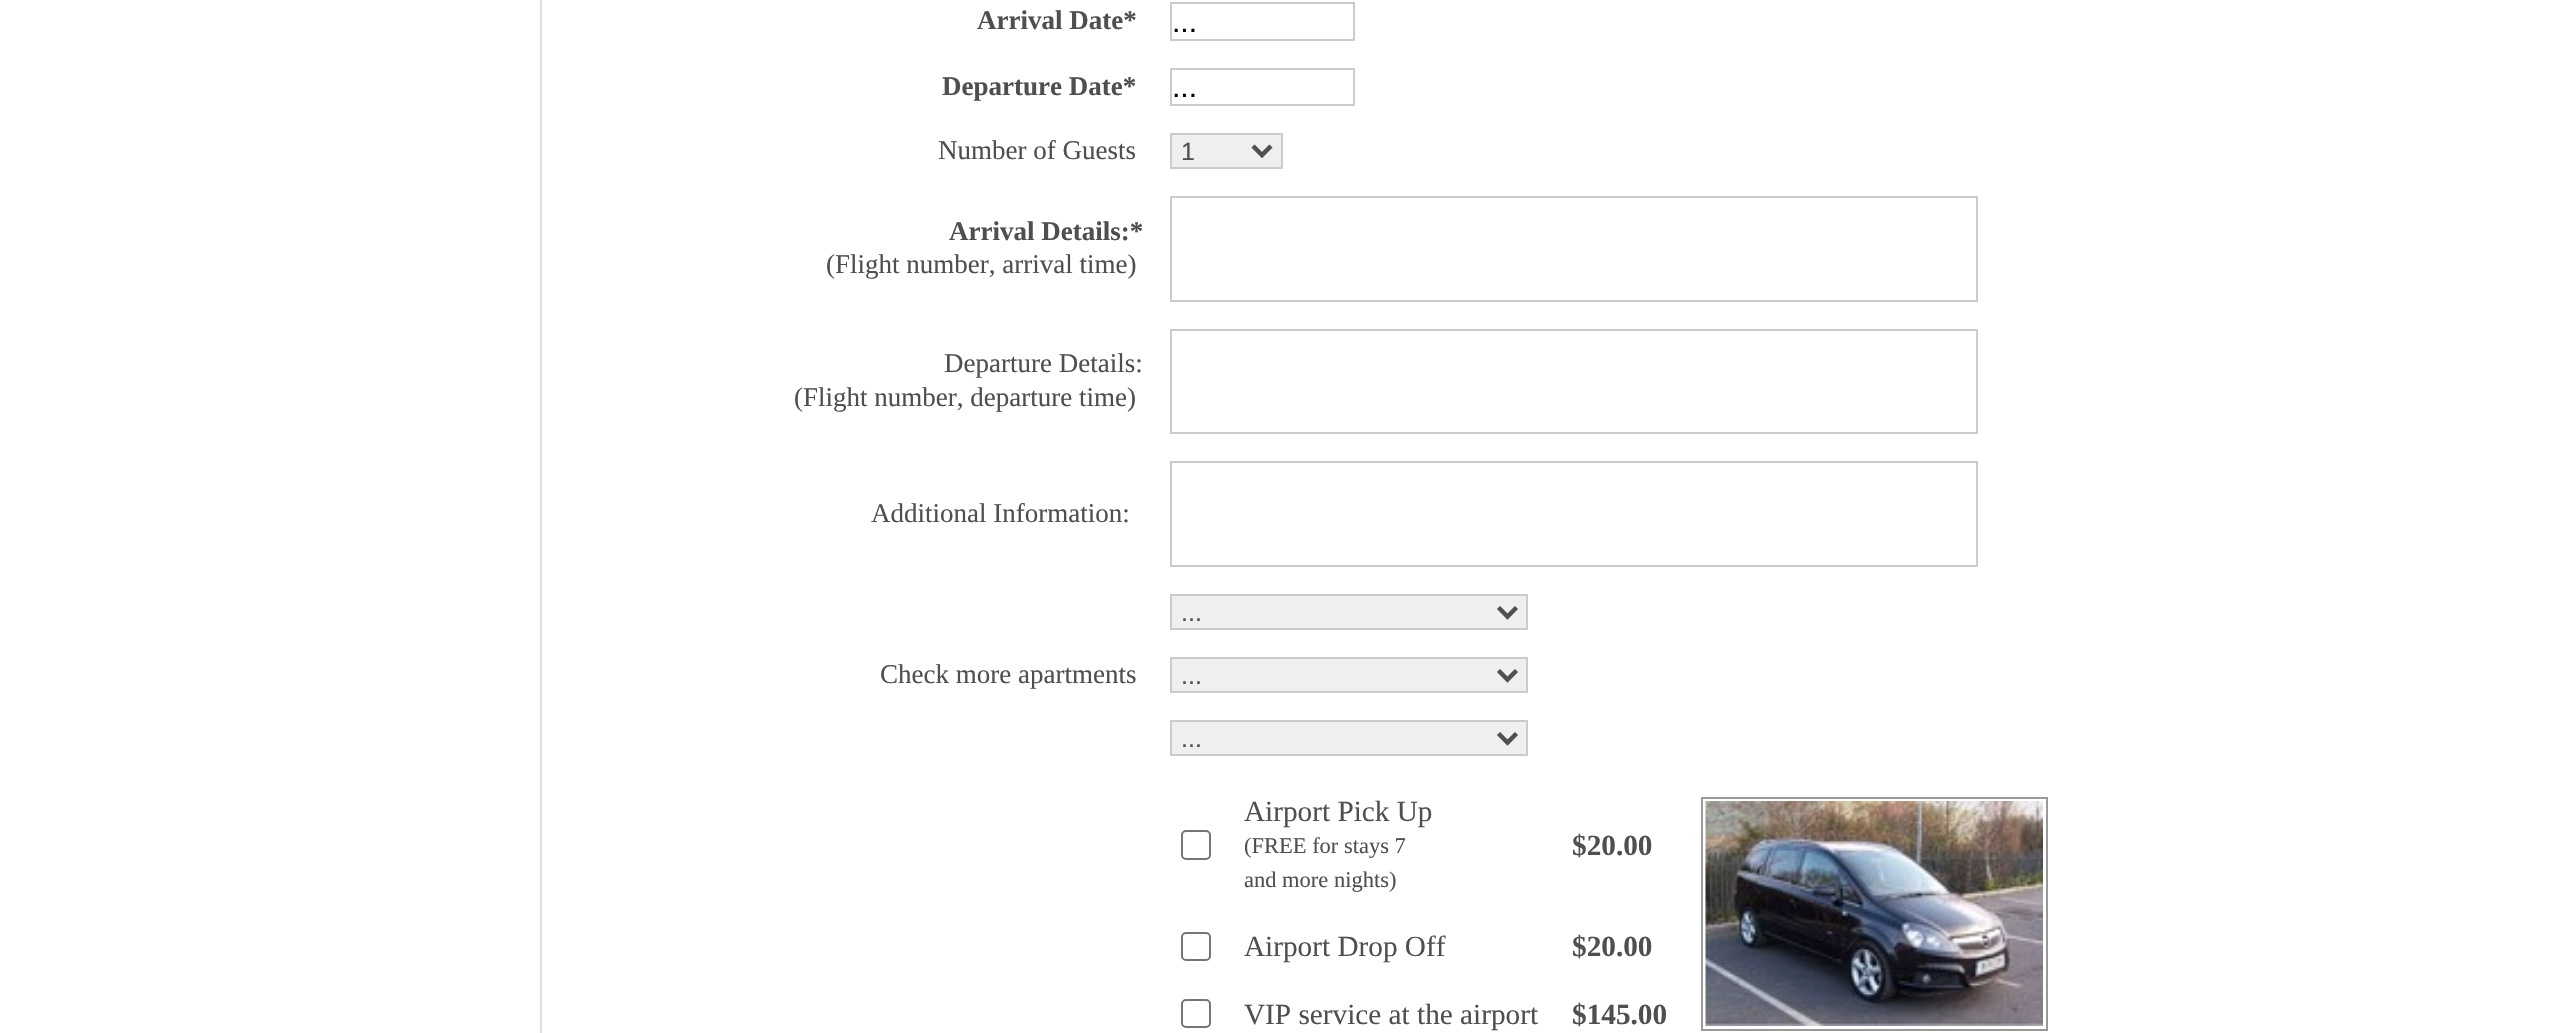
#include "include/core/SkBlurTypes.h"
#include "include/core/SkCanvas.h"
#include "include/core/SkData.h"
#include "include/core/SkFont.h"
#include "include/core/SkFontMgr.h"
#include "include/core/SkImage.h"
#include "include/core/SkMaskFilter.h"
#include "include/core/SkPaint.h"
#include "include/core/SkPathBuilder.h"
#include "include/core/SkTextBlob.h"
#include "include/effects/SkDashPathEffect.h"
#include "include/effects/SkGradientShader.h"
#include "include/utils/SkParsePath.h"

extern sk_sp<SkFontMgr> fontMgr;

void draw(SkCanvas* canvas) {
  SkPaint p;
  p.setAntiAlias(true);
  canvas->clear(SK_ColorWHITE);
  p.setColor(SkColorSetRGB(223, 223, 223));
  canvas->drawRect(SkRect::MakeLTRB(540, 0, 542, 1033), p);
  p.setStyle(SkPaint::kStroke_Style);
  p.setStrokeWidth(2);
  p.setColor(SkColorSetRGB(203, 203, 203));
  canvas->drawRect(SkRect::MakeLTRB(1171, 3, 1354, 40), p);
  canvas->drawRect(SkRect::MakeLTRB(1171, 69, 1354, 105), p);
  p.setStyle(SkPaint::kFill_Style);
  p.setColor(SkColorSetRGB(239, 239, 239));
  canvas->drawRect(SkRect::MakeLTRB(1171, 134, 1282, 168), p);
  p.setStyle(SkPaint::kStroke_Style);
  p.setColor(SkColorSetRGB(203, 203, 203));
  canvas->drawRect(SkRect::MakeLTRB(1171, 134, 1282, 168), p);
  p.setStrokeWidth(4.5f);
  p.setColor(SkColorSetRGB(79, 79, 80));
  canvas->drawPath(SkPathBuilder().moveTo(1253, 146).lineTo(1262, 155).lineTo(1271, 146).detach(), p);
  p.setStrokeWidth(2);
  p.setColor(SkColorSetRGB(203, 203, 203));
  canvas->drawRect(SkRect::MakeLTRB(1171, 197, 1977, 301), p);
  canvas->drawRect(SkRect::MakeLTRB(1171, 330, 1977, 433), p);
  canvas->drawRect(SkRect::MakeLTRB(1171, 462, 1977, 566), p);
  p.setStyle(SkPaint::kFill_Style);
  p.setColor(SkColorSetRGB(239, 239, 239));
  canvas->drawRect(SkRect::MakeLTRB(1171, 595, 1527, 629), p);
  p.setStyle(SkPaint::kStroke_Style);
  p.setColor(SkColorSetRGB(203, 203, 203));
  canvas->drawRect(SkRect::MakeLTRB(1171, 595, 1527, 629), p);
  p.setStrokeWidth(4.5f);
  p.setColor(SkColorSetRGB(79, 79, 80));
  canvas->drawPath(SkPathBuilder().moveTo(1498.5f, 607.5f).lineTo(1507.5f, 616.5f).lineTo(1516.5f, 607.5f).detach(), p);
  p.setStyle(SkPaint::kFill_Style);
  p.setColor(SkColorSetRGB(239, 239, 239));
  canvas->drawRect(SkRect::MakeLTRB(1171, 658, 1527, 692), p);
  p.setStyle(SkPaint::kStroke_Style);
  p.setStrokeWidth(2);
  p.setColor(SkColorSetRGB(203, 203, 203));
  canvas->drawRect(SkRect::MakeLTRB(1171, 658, 1527, 692), p);
  p.setStrokeWidth(4.5f);
  p.setColor(SkColorSetRGB(79, 79, 80));
  canvas->drawPath(SkPathBuilder().moveTo(1498.5f, 670.5f).lineTo(1507.5f, 679.5f).lineTo(1516.5f, 670.5f).detach(), p);
  p.setStyle(SkPaint::kFill_Style);
  p.setColor(SkColorSetRGB(239, 239, 239));
  canvas->drawRect(SkRect::MakeLTRB(1171, 721, 1527, 755), p);
  p.setStyle(SkPaint::kStroke_Style);
  p.setStrokeWidth(2);
  p.setColor(SkColorSetRGB(203, 203, 203));
  canvas->drawRect(SkRect::MakeLTRB(1171, 721, 1527, 755), p);
  p.setStrokeWidth(4.5f);
  p.setColor(SkColorSetRGB(79, 79, 80));
  canvas->drawPath(SkPathBuilder().moveTo(1498.5f, 733.5f).lineTo(1507.5f, 742.5f).lineTo(1516.5f, 733.5f).detach(), p);
  p.setStrokeWidth(2);
  p.setColor(SkColorSetRGB(118, 118, 118));
  canvas->drawRoundRect(SkRect::MakeLTRB(1182, 831, 1210, 859), 4, 4, p);
  p.setColor(SkColorSetRGB(153, 153, 153));
  canvas->drawRect(SkRect::MakeLTRB(1702, 798, 2047, 1030), p);
  canvas->drawImageRect(SkImages::DeferredFromEncodedData(SkData::MakeFromFileName("images/1.png")), SkRect::MakeLTRB(1705, 801, 2043, 1026), SkSamplingOptions());
  p.setColor(SkColorSetRGB(118, 118, 118));
  canvas->drawRoundRect(SkRect::MakeLTRB(1182, 933, 1210, 960), 4, 4, p);
  canvas->drawRoundRect(SkRect::MakeLTRB(1182, 1000, 1210, 1027), 4, 4, p);
  SkFont font1(fontMgr->matchFamilyStyle("Liberation Serif", SkFontStyle::Bold()), 27);
  font1.setSubpixel(true);
  p.setStyle(SkPaint::kFill_Style);
  p.setColor(SkColorSetRGB(79, 79, 80));
  canvas->drawString("Arrival Date*", 977, 29, font1, p);
  SkFont font2(fontMgr->matchFamilyStyle("Liberation Sans", SkFontStyle::Normal()), 30);
  font2.setSubpixel(true);
  p.setColor(SK_ColorBLACK);
  canvas->drawString("...", 1172, 32, font2, p);
  p.setColor(SkColorSetRGB(79, 79, 80));
  canvas->drawString("Departure Date*", 942, 95, font1, p);
  p.setColor(SK_ColorBLACK);
  canvas->drawString("...", 1172, 97, font2, p);
  SkFont font3(fontMgr->matchFamilyStyle("Liberation Serif", SkFontStyle::Normal()), 27);
  font3.setSubpixel(true);
  p.setColor(SkColorSetRGB(79, 79, 80));
  canvas->drawString("Number of Guests", 938, 159, font3, p);
  SkFont font4(fontMgr->matchFamilyStyle("Liberation Sans", SkFontStyle::Normal()), 25);
  font4.setSubpixel(true);
  canvas->drawString("1", 1181, 160, font4, p);
  canvas->drawString("Arrival Details:*", 949, 240, font1, p);
  canvas->drawString("(Flight number, arrival time)", 826, 273, font3, p);
  canvas->drawString("Departure Details:", 944, 372, font3, p);
  canvas->drawString("(Flight number, departure time)", 794, 406, font3, p);
  canvas->drawString("Additional Information:", 871, 522, font3, p);
  canvas->drawString("...", 1181, 621, font4, p);
  canvas->drawString("Check more apartments", 880, 683, font3, p);
  canvas->drawString("...", 1181, 684, font4, p);
  canvas->drawString("...", 1181, 747, font4, p);
  SkFont font5(fontMgr->matchFamilyStyle("Liberation Serif", SkFontStyle::Normal()), 29.25f);
  font5.setSubpixel(true);
  canvas->drawString("Airport Pick Up", 1244, 821, font5, p);
  SkFont font6(fontMgr->matchFamilyStyle("Liberation Serif", SkFontStyle::Normal()), 22.5f);
  font6.setSubpixel(true);
  canvas->drawString("(FREE for stays 7", 1244, 853, font6, p);
  canvas->drawString("and more nights)", 1244, 887, font6, p);
  SkFont font7(fontMgr->matchFamilyStyle("Liberation Serif", SkFontStyle::Bold()), 29.25f);
  font7.setSubpixel(true);
  canvas->drawString("$20.00", 1572, 855, font7, p);
  canvas->drawString("Airport Drop Off", 1244, 956, font5, p);
  canvas->drawString("$20.00", 1572, 956, font7, p);
  canvas->drawString("VIP service at the airport", 1244, 1024, font5, p);
  canvas->drawString("$145.00", 1572, 1024, font7, p);
}
